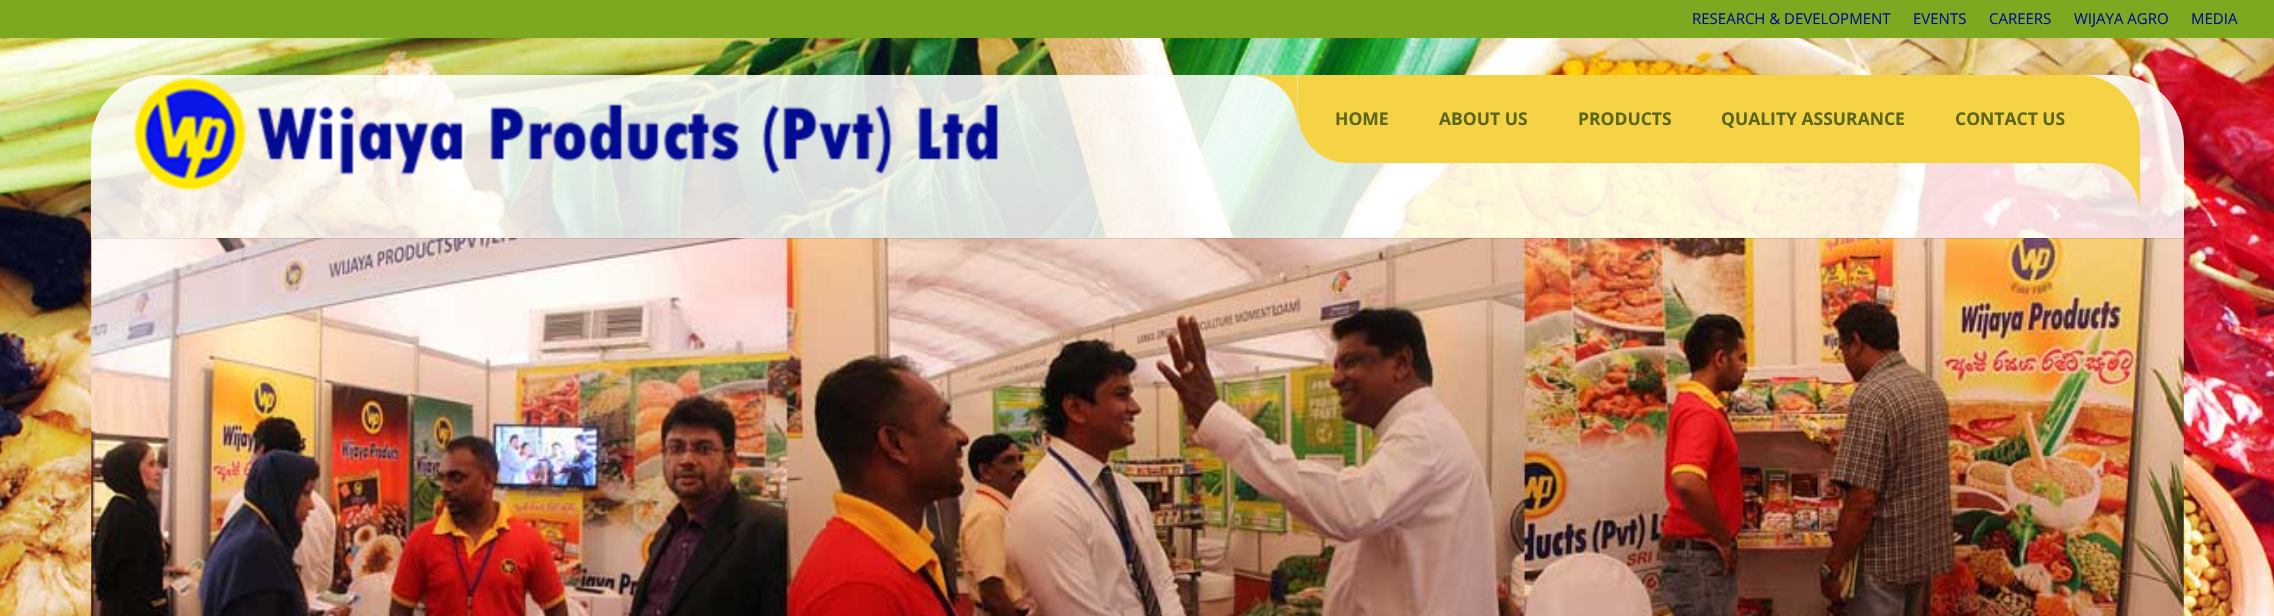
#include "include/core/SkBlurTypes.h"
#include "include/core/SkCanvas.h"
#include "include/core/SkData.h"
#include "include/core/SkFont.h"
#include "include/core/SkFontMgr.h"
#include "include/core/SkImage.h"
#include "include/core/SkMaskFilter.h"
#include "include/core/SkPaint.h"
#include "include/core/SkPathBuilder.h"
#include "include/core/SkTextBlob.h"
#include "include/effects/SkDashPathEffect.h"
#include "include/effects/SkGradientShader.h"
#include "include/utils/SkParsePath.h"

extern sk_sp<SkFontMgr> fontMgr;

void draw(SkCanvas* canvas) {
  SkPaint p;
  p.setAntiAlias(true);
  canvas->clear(SK_ColorWHITE);
  canvas->drawImageRect(SkImages::DeferredFromEncodedData(SkData::MakeFromFileName("images/1.png")), SkRect::MakeLTRB(0, 38, 2274, 616), SkSamplingOptions());
  p.setColor(SkColorSetRGB(125, 169, 32));
  canvas->drawRect(SkRect::MakeLTRB(0, 0, 2274, 38), p);
  canvas->drawImageRect(SkImages::DeferredFromEncodedData(SkData::MakeFromFileName("images/5.png")), SkRect::MakeLTRB(91, 237, 2184, 616), SkSamplingOptions());
  p.setColor(SkColorSetARGB(26, 0, 0, 0));
  canvas->drawPath(SkPathBuilder().moveTo(93, 131).cubicTo(92, 135, 91, 140, 91, 145).lineTo(91, 239).lineTo(2184, 239).lineTo(2184, 145).cubicTo(2184, 140, 2183, 135, 2182, 131).cubicTo(2183, 135, 2184, 139, 2184, 144).lineTo(2184, 238).lineTo(91, 238).lineTo(91, 144).cubicTo(91, 139, 92, 135, 93, 131).close().detach(), p);
  p.setColor(SkColorSetARGB(217, 255, 255, 255));
  canvas->drawPath(SkPathBuilder().moveTo(160, 75).lineTo(2115, 75).cubicTo(2153, 75, 2184, 106, 2184, 144).lineTo(2184, 238).lineTo(91, 238).lineTo(91, 144).cubicTo(91, 106, 122, 75, 160, 75).close().detach(), p);
  canvas->drawImageRect(SkImages::DeferredFromEncodedData(SkData::MakeFromFileName("images/2.png")), SkRect::MakeLTRB(133, 78, 999, 191), SkSamplingOptions());
  canvas->drawImageRect(SkImages::DeferredFromEncodedData(SkData::MakeFromFileName("images/3.png")), SkRect::MakeLTRB(1247, 75, 1298, 125), SkSamplingOptions());
  p.setColor(SkColorSetRGB(246, 211, 68));
  canvas->drawPath(SkPathBuilder().moveTo(1298, 75).lineTo(2080, 75).cubicTo(2113, 75, 2140, 102, 2140, 135).lineTo(2140, 163).lineTo(1348, 163).cubicTo(1320.5f, 163, 1298, 140.5f, 1298, 113).close().detach(), p);
  canvas->drawImageRect(SkImages::DeferredFromEncodedData(SkData::MakeFromFileName("images/4.png")), SkRect::MakeLTRB(2090, 163, 2140, 213), SkSamplingOptions());
  SkFont font1(fontMgr->matchFamilyStyle("Open Sans", SkFontStyle::Normal()), 15);
  font1.setSubpixel(true);
  p.setColor(SkColorSetRGB(3, 11, 145));
  canvas->drawString("RESEARCH & DEVELOPMENT", 1692, 24, font1, p);
  canvas->drawString("EVENTS", 1913, 24, font1, p);
  canvas->drawString("CAREERS", 1989, 24, font1, p);
  canvas->drawString("WIJAYA AGRO", 2074, 24, font1, p);
  canvas->drawString("MEDIA", 2191, 24, font1, p);
  SkFont font2(fontMgr->matchFamilyStyle("Open Sans", SkFontStyle::Bold()), 17.5f);
  font2.setSubpixel(true);
  p.setColor(SkColorSetRGB(91, 103, 31));
  canvas->drawString("HOME", 1335, 125, font2, p);
  canvas->drawString("ABOUT US", 1439, 125, font2, p);
  canvas->drawString("PRODUCTS", 1578, 125, font2, p);
  canvas->drawString("QUALITY ASSURANCE", 1721, 125, font2, p);
  canvas->drawString("CONTACT US", 1955, 125, font2, p);
}
